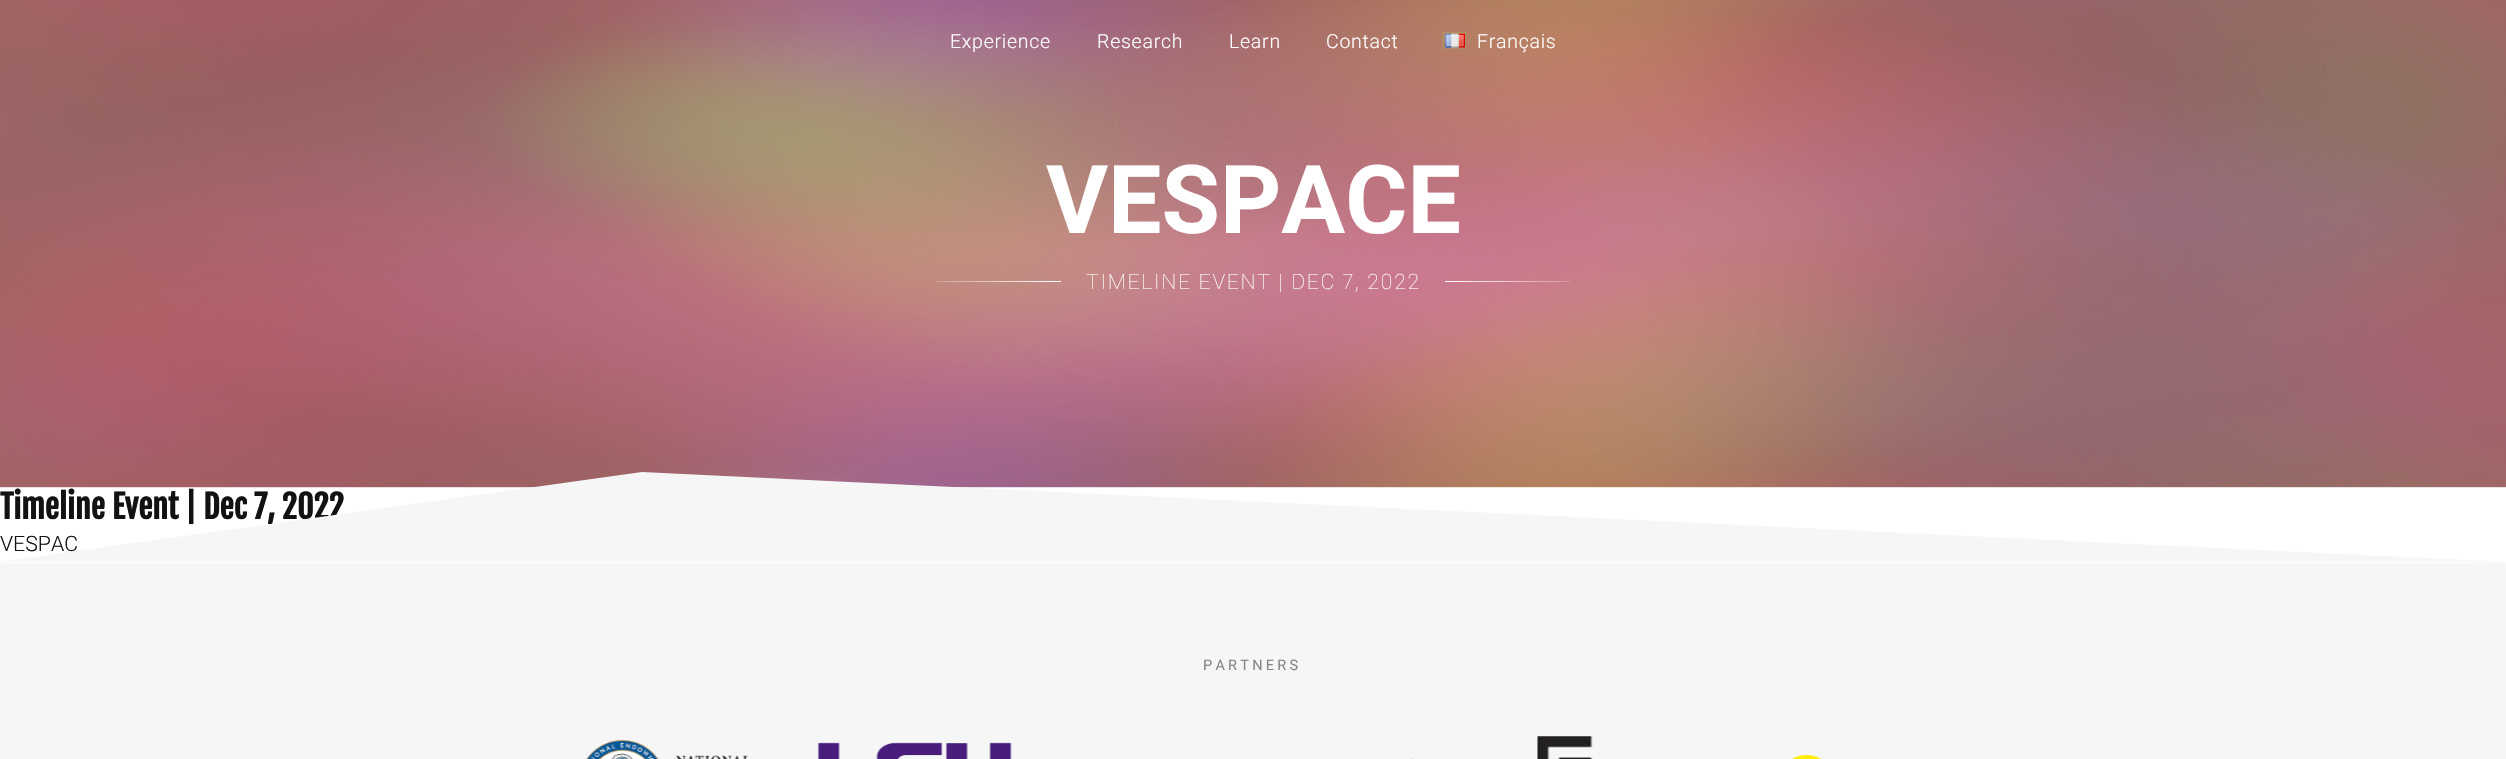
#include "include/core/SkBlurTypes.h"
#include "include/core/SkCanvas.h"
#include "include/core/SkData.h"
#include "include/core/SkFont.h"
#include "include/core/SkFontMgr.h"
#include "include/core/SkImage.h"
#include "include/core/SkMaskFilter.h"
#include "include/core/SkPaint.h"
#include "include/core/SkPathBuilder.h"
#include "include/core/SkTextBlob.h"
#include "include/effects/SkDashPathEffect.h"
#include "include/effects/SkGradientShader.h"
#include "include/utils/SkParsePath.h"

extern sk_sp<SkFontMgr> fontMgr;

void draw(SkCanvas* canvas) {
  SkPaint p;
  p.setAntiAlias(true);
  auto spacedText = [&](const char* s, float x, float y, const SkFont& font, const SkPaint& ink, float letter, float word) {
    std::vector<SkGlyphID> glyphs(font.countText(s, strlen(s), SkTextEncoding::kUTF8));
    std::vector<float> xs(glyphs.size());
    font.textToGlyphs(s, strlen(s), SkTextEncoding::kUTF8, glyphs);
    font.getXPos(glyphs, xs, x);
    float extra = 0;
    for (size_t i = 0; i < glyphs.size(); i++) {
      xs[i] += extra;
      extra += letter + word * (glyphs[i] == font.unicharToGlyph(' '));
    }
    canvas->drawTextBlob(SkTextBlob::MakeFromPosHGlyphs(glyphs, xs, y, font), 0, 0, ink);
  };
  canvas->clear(SK_ColorWHITE);
  canvas->drawImageRect(SkImages::DeferredFromEncodedData(SkData::MakeFromFileName("images/2.png")), SkRect::MakeLTRB(0, 0, 2506, 488), SkSamplingOptions());
  canvas->drawImageRect(SkImages::DeferredFromEncodedData(SkData::MakeFromFileName("images/1.png")), SkRect::MakeLTRB(1442, 32, 1466, 49), SkSamplingOptions());
  {
    const SkColor colors[] = {SkColorSetARGB(51, 255, 255, 255), SK_ColorWHITE};
    const float stops[] = {0, 1};
    const SkPoint ends[] = {{936, 282}, {1061, 282}};
    p.setShader(SkGradientShader::MakeLinear(ends, colors, stops, 2, SkTileMode::kClamp));
    p.setAlpha(255);
  }
  canvas->drawRect(SkRect::MakeLTRB(936, 281, 1061, 282), p);
  {
    const SkColor colors[] = {SkColorSetARGB(51, 255, 255, 255), SK_ColorWHITE};
    const float stops[] = {0, 1};
    const SkPoint ends[] = {{1570, 282}, {1445, 282}};
    p.setShader(SkGradientShader::MakeLinear(ends, colors, stops, 2, SkTileMode::kClamp));
    p.setAlpha(255);
  }
  canvas->drawRect(SkRect::MakeLTRB(1445, 281, 1570, 282), p);
  p.setShader(nullptr);
  p.setColor(SkColorSetRGB(246, 246, 246));
  canvas->drawRect(SkRect::MakeLTRB(0, 563, 2506, 759), p);
  canvas->drawImageRect(SkImages::DeferredFromEncodedData(SkData::MakeFromFileName("images/3.png")), SkRect::MakeLTRB(586, 740, 748, 759), SkSamplingOptions());
  canvas->drawImageRect(SkImages::DeferredFromEncodedData(SkData::MakeFromFileName("images/4.png")), SkRect::MakeLTRB(817, 742, 1012, 759), SkSamplingOptions());
  canvas->drawImageRect(SkImages::DeferredFromEncodedData(SkData::MakeFromFileName("images/5.png")), SkRect::MakeLTRB(1410, 758, 1413, 759), SkSamplingOptions());
  canvas->drawImageRect(SkImages::DeferredFromEncodedData(SkData::MakeFromFileName("images/6.png")), SkRect::MakeLTRB(1537, 736, 1593, 759), SkSamplingOptions());
  canvas->drawImageRect(SkImages::DeferredFromEncodedData(SkData::MakeFromFileName("images/7.png")), SkRect::MakeLTRB(1791, 755, 1822, 759), SkSamplingOptions());
  SkFont font1(fontMgr->matchFamilyStyle("Roboto", SkFontStyle(300, SkFontStyle::kNormal_Width, SkFontStyle::kUpright_Slant)), 19.5f);
  font1.setSubpixel(true);
  p.setColor(SK_ColorWHITE);
  spacedText("Experience", 950, 48, font1, p, 0.75f, 0);
  spacedText("Research", 1097, 48, font1, p, 0.75f, 0);
  spacedText("Learn", 1229, 48, font1, p, 0.75f, 0);
  spacedText("Contact", 1326, 48, font1, p, 0.75f, 0);
  spacedText("Français", 1477, 48, font1, p, 0.75f, 0);
  SkFont font2(fontMgr->matchFamilyStyle("Roboto", SkFontStyle::Bold()), 95);
  font2.setSubpixel(true);
  canvas->drawString("VESPACE", 1046, 233, font2, p);
  SkFont font3(fontMgr->matchFamilyStyle("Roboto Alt", SkFontStyle(100, SkFontStyle::kNormal_Width, SkFontStyle::kUpright_Slant)), 21.25f);
  font3.setSubpixel(true);
  spacedText("TIMELINE EVENT | DEC 7, 2022", 1086, 289, font3, p, 1.7f, 0);
  SkFont font4(fontMgr->matchFamilyStyle("Fjalla One", SkFontStyle::Bold()), 31.9f);
  font4.setSubpixel(true);
  p.setColor(SkColorSetRGB(18, 18, 18));
  canvas->drawString("Timeline Event | Dec 7, 2022", 0, 519, font4, p);
  SkFont font5(fontMgr->matchFamilyStyle("Roboto", SkFontStyle(300, SkFontStyle::kNormal_Width, SkFontStyle::kUpright_Slant)), 21.25f);
  font5.setSubpixel(true);
  canvas->drawString("VESPAC", 0, 551, font5, p);
  p.setColor(SkColorSetRGB(246, 246, 246));
  canvas->drawPath(SkPathBuilder().moveTo(-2, 562).lineTo(2506, 562).lineTo(642, 472).close().detach(), p);
  SkFont font6(fontMgr->matchFamilyStyle("Roboto", SkFontStyle::Normal()), 14.5f);
  font6.setSubpixel(true);
  p.setColor(SkColorSetRGB(132, 132, 132));
  spacedText("PARTNERS", 1203, 670, font6, p, 3.25f, 0);
}
